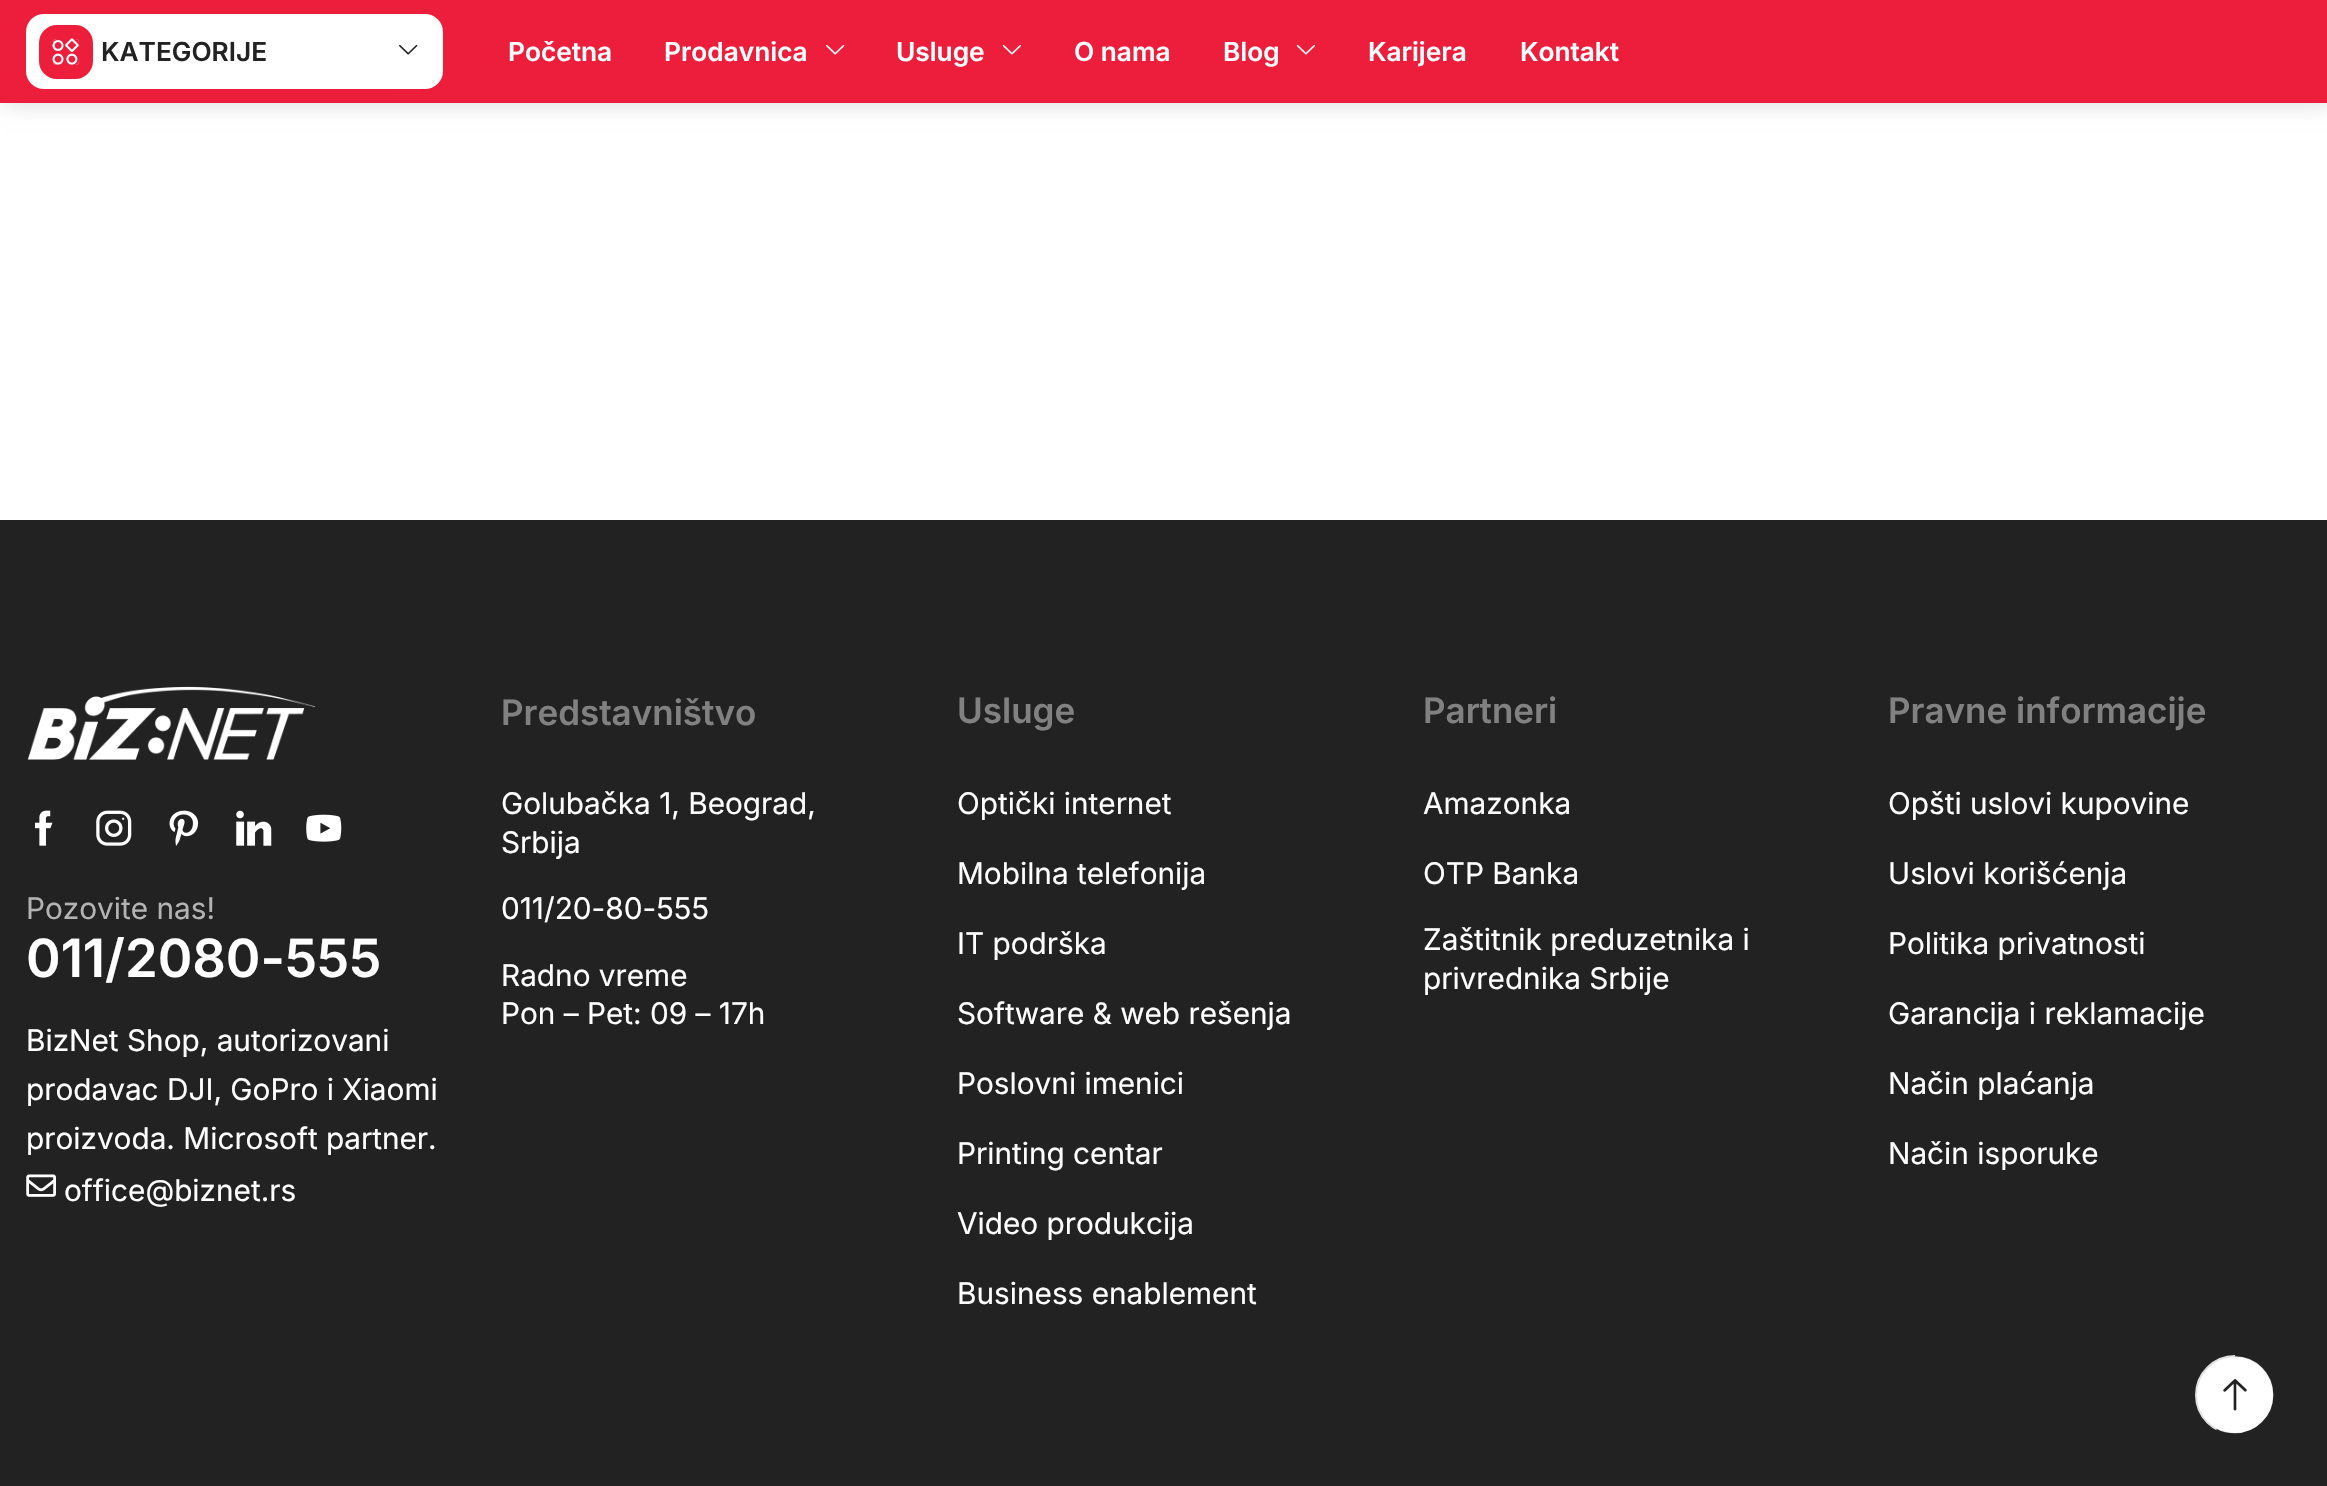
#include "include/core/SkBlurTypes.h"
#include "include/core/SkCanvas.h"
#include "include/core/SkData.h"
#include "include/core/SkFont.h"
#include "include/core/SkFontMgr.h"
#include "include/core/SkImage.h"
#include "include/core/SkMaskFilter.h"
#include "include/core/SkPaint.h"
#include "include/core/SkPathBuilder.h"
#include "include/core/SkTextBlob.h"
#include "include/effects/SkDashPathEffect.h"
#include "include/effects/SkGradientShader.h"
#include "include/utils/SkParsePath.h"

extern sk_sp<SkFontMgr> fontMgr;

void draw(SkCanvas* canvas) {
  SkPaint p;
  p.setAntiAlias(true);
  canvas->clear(SK_ColorWHITE);
  p.setColor(SkColorSetARGB(38, 0, 0, 0));
  p.setMaskFilter(SkMaskFilter::MakeBlur(kNormal_SkBlurStyle, 10.5f));
  canvas->drawRect(SkRect::MakeLTRB(4, 0, 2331, 103), p);
  p.setMaskFilter(nullptr);
  p.setColor(SkColorSetRGB(236, 30, 60));
  canvas->drawRect(SkRect::MakeLTRB(0, 0, 2327, 103), p);
  p.setColor(SK_ColorWHITE);
  canvas->drawRoundRect(SkRect::MakeLTRB(26, 14, 443, 89), 18, 18, p);
  p.setStyle(SkPaint::kStroke_Style);
  p.setStrokeWidth(14);
  p.setColor(SkColorSetRGB(236, 30, 60));
  canvas->drawRoundRect(SkRect::MakeLTRB(46, 32, 86, 72), 11, 11, p);
  p.setStyle(SkPaint::kFill_Style);
  canvas->drawRoundRect(SkRect::MakeLTRB(53, 39, 79, 65), 4, 4, p);
  canvas->drawImageRect(SkImages::DeferredFromEncodedData(SkData::MakeFromFileName("images/1.png")), SkRect::MakeLTRB(52, 38, 79, 65), SkSamplingOptions());
  canvas->drawImageRect(SkImages::DeferredFromEncodedData(SkData::MakeFromFileName("images/2.png")), SkRect::MakeLTRB(399, 44, 418, 55), SkSamplingOptions());
  canvas->drawImageRect(SkImages::DeferredFromEncodedData(SkData::MakeFromFileName("images/3.png")), SkRect::MakeLTRB(826, 44, 845, 55), SkSamplingOptions());
  canvas->drawImageRect(SkImages::DeferredFromEncodedData(SkData::MakeFromFileName("images/4.png")), SkRect::MakeLTRB(1002, 44, 1022, 55), SkSamplingOptions());
  canvas->drawImageRect(SkImages::DeferredFromEncodedData(SkData::MakeFromFileName("images/4.png")), SkRect::MakeLTRB(1296, 44, 1316, 55), SkSamplingOptions());
  p.setColor(SkColorSetRGB(34, 34, 34));
  canvas->drawRect(SkRect::MakeLTRB(0, 520, 2327, 1486), p);
  p.setColor(SK_ColorWHITE);
  canvas->drawCircle(2235, 1395, 39, p);
  p.setStyle(SkPaint::kStroke_Style);
  p.setStrokeWidth(2);
  p.setColor(SkColorSetRGB(225, 225, 225));
  canvas->drawCircle(2235, 1395, 39, p);
  p.setStrokeWidth(3.3f);
  p.setColor(SkColorSetRGB(34, 34, 34));
  canvas->drawPath(SkPathBuilder().moveTo(2235, 1354.5f).cubicTo(2257, 1354.5f, 2275, 1372.5f, 2275, 1395).cubicTo(2275, 1417, 2257, 1435, 2235, 1435).cubicTo(2228, 1435, 2221.5f, 1433.5f, 2216, 1430.5f).detach(), p);
  canvas->drawImageRect(SkImages::DeferredFromEncodedData(SkData::MakeFromFileName("images/5.png")), SkRect::MakeLTRB(2223, 1379, 2247, 1411), SkSamplingOptions());
  canvas->drawImageRect(SkImages::DeferredFromEncodedData(SkData::MakeFromFileName("images/6.png")), SkRect::MakeLTRB(27, 686, 316, 760), SkSamplingOptions());
  canvas->drawImageRect(SkImages::DeferredFromEncodedData(SkData::MakeFromFileName("images/7.png")), SkRect::MakeLTRB(35, 810, 53, 846), SkSamplingOptions());
  canvas->drawImageRect(SkImages::DeferredFromEncodedData(SkData::MakeFromFileName("images/8.png")), SkRect::MakeLTRB(96, 810, 132, 846), SkSamplingOptions());
  canvas->drawImageRect(SkImages::DeferredFromEncodedData(SkData::MakeFromFileName("images/9.png")), SkRect::MakeLTRB(169, 810, 199, 846), SkSamplingOptions());
  canvas->drawImageRect(SkImages::DeferredFromEncodedData(SkData::MakeFromFileName("images/10.png")), SkRect::MakeLTRB(236, 810, 272, 846), SkSamplingOptions());
  canvas->drawImageRect(SkImages::DeferredFromEncodedData(SkData::MakeFromFileName("images/11.png")), SkRect::MakeLTRB(306, 814, 342, 842), SkSamplingOptions());
  canvas->drawImageRect(SkImages::DeferredFromEncodedData(SkData::MakeFromFileName("images/12.png")), SkRect::MakeLTRB(26, 1174, 56, 1197), SkSamplingOptions());
  SkFont font1(fontMgr->matchFamilyStyle("Inter", SkFontStyle(600, SkFontStyle::kNormal_Width, SkFontStyle::kUpright_Slant)), 26.25f);
  font1.setSubpixel(true);
  p.setStyle(SkPaint::kFill_Style);
  canvas->drawString("KATEGORIJE", 101, 61, font1, p);
  p.setColor(SK_ColorWHITE);
  canvas->drawString("Početna", 508, 61, font1, p);
  canvas->drawString("Prodavnica", 664, 61, font1, p);
  canvas->drawString("Usluge", 896, 61, font1, p);
  canvas->drawString("O nama", 1074, 61, font1, p);
  canvas->drawString("Blog", 1223, 61, font1, p);
  canvas->drawString("Karijera", 1368, 61, font1, p);
  canvas->drawString("Kontakt", 1520, 61, font1, p);
  SkFont font2(fontMgr->matchFamilyStyle("Inter", SkFontStyle::Normal()), 29.75f);
  font2.setSubpixel(true);
  p.setColor(SkColorSetRGB(179, 179, 179));
  canvas->drawString("Pozovite nas!", 26, 919, font2, p);
  SkFont font3(fontMgr->matchFamilyStyle("Inter", SkFontStyle(600, SkFontStyle::kNormal_Width, SkFontStyle::kUpright_Slant)), 52.5f);
  font3.setSubpixel(true);
  p.setColor(SK_ColorWHITE);
  canvas->drawString("011/2080-555", 26, 977, font3, p);
  canvas->drawString("BizNet Shop, autorizovani", 26, 1051, font2, p);
  canvas->drawString("prodavac DJI, GoPro i Xiaomi", 26, 1100, font2, p);
  canvas->drawString("proizvoda. Microsoft partner.", 26, 1149, font2, p);
  canvas->drawString("office@biznet.rs", 64, 1201, font2, p);
  SkFont font4(fontMgr->matchFamilyStyle("Inter", SkFontStyle(600, SkFontStyle::kNormal_Width, SkFontStyle::kUpright_Slant)), 35);
  font4.setSubpixel(true);
  p.setColor(SkColorSetRGB(129, 129, 129));
  canvas->drawString("Predstavništvo", 501, 725, font4, p);
  p.setColor(SK_ColorWHITE);
  canvas->drawString("Golubačka 1, Beograd,", 501, 814, font2, p);
  canvas->drawString("Srbija", 501, 853, font2, p);
  canvas->drawString("011/20-80-555", 501, 919, font2, p);
  canvas->drawString("Radno vreme", 501, 986, font2, p);
  canvas->drawString("Pon – Pet: 09 – 17h", 501, 1024, font2, p);
  p.setColor(SkColorSetRGB(129, 129, 129));
  canvas->drawString("Usluge", 957, 723, font4, p);
  p.setColor(SK_ColorWHITE);
  canvas->drawString("Optički internet", 957, 814, font2, p);
  canvas->drawString("Mobilna telefonija", 957, 884, font2, p);
  canvas->drawString("IT podrška", 957, 954, font2, p);
  canvas->drawString("Software & web rešenja", 957, 1024, font2, p);
  canvas->drawString("Poslovni imenici", 957, 1094, font2, p);
  canvas->drawString("Printing centar", 957, 1164, font2, p);
  canvas->drawString("Video produkcija", 957, 1234, font2, p);
  canvas->drawString("Business enablement", 957, 1304, font2, p);
  p.setColor(SkColorSetRGB(129, 129, 129));
  canvas->drawString("Partneri", 1423, 723, font4, p);
  p.setColor(SK_ColorWHITE);
  canvas->drawString("Amazonka", 1423, 814, font2, p);
  canvas->drawString("OTP Banka", 1423, 884, font2, p);
  canvas->drawString("Zaštitnik preduzetnika i", 1423, 950, font2, p);
  canvas->drawString("privrednika Srbije", 1423, 989, font2, p);
  p.setColor(SkColorSetRGB(129, 129, 129));
  canvas->drawString("Pravne informacije", 1888, 723, font4, p);
  p.setColor(SK_ColorWHITE);
  canvas->drawString("Opšti uslovi kupovine", 1888, 814, font2, p);
  canvas->drawString("Uslovi korišćenja", 1888, 884, font2, p);
  canvas->drawString("Politika privatnosti", 1888, 954, font2, p);
  canvas->drawString("Garancija i reklamacije", 1888, 1024, font2, p);
  canvas->drawString("Način plaćanja", 1888, 1094, font2, p);
  canvas->drawString("Način isporuke", 1888, 1164, font2, p);
}
